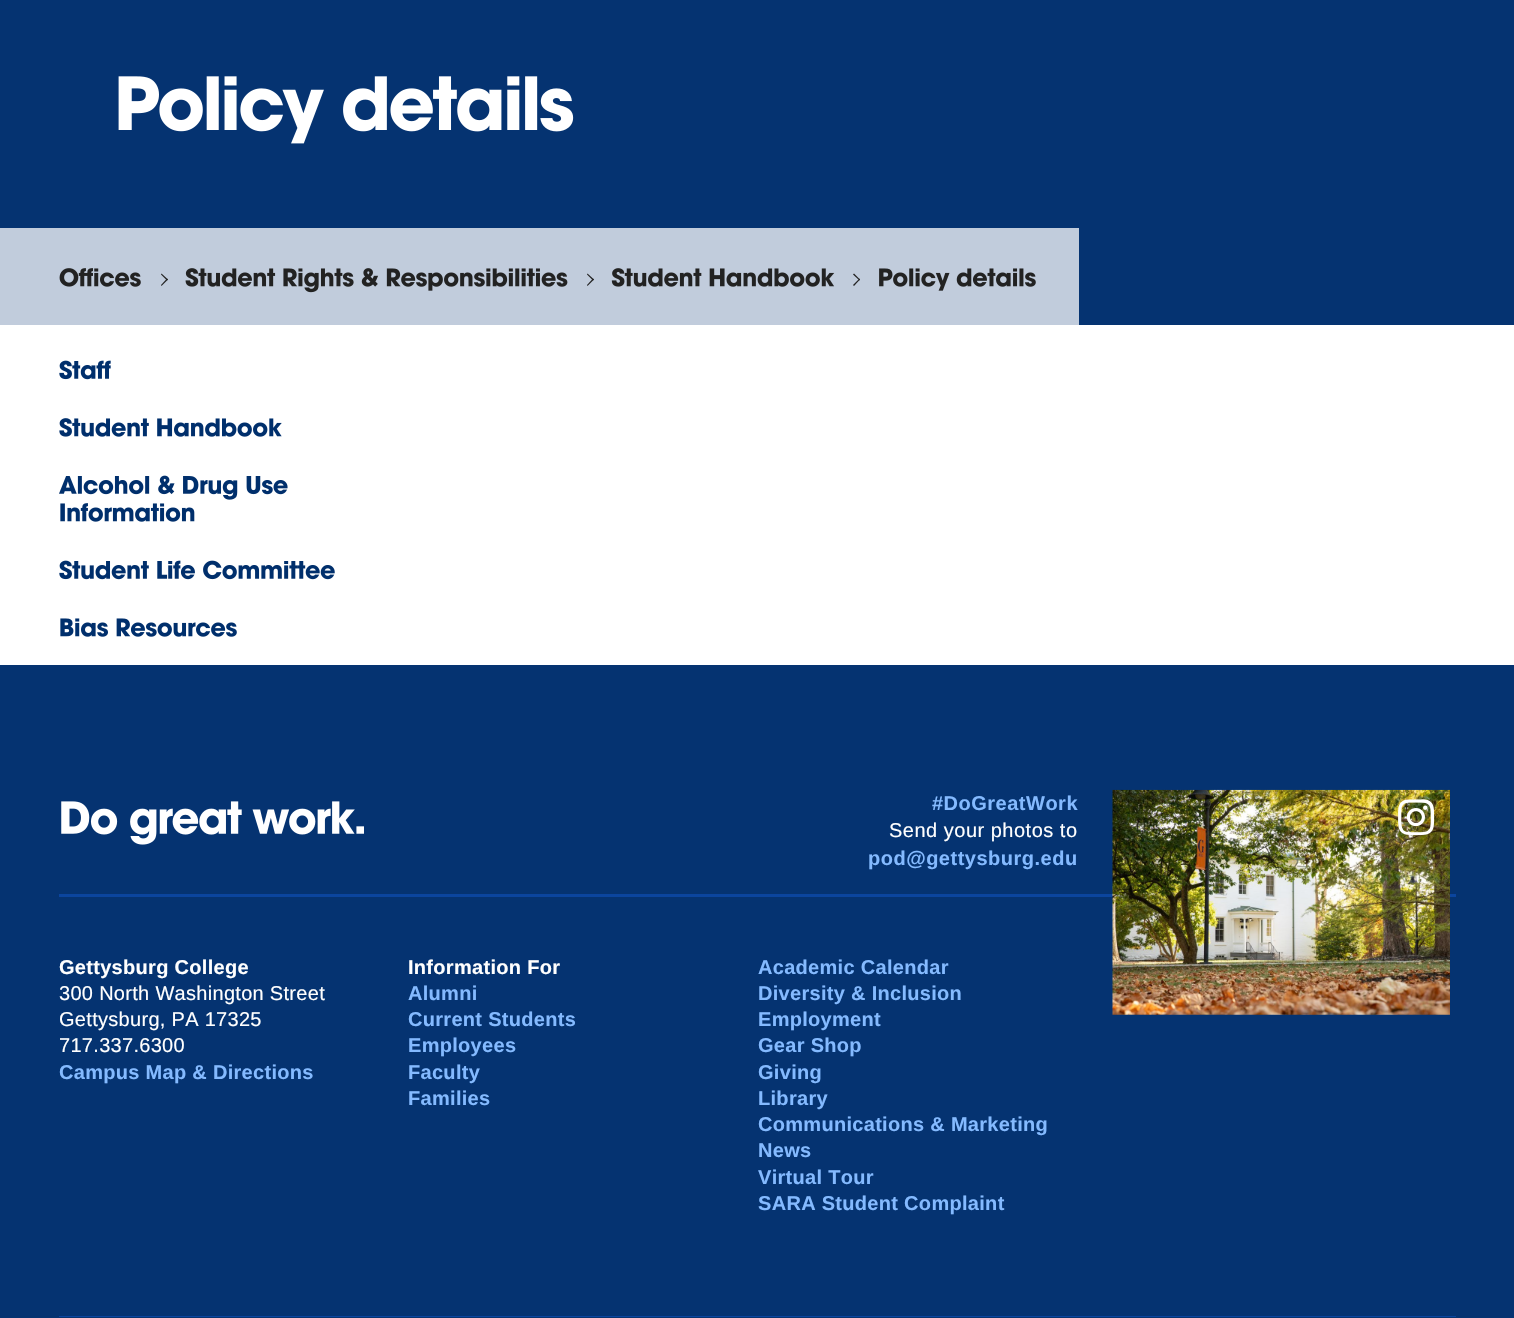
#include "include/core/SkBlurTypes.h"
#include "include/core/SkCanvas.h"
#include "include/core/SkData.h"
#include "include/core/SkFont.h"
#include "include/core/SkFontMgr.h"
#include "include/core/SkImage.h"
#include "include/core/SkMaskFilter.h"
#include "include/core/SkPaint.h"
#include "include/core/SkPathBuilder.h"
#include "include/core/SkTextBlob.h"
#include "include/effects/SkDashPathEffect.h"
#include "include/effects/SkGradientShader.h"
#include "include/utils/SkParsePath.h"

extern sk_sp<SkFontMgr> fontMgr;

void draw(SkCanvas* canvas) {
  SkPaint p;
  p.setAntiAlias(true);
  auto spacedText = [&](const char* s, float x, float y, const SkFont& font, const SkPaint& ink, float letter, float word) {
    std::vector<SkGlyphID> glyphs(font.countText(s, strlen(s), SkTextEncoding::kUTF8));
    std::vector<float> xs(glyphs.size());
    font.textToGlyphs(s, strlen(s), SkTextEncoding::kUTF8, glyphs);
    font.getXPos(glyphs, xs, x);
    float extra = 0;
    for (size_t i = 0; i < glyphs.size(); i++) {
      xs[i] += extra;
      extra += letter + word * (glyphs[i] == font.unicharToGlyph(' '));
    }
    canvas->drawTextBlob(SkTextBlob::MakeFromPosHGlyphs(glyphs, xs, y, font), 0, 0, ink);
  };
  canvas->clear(SK_ColorWHITE);
  p.setColor(SkColorSetRGB(5, 51, 113));
  canvas->drawRect(SkRect::MakeLTRB(0, 0, 1514, 325), p);
  canvas->drawImageRect(SkImages::DeferredFromEncodedData(SkData::MakeFromFileName("images/1.png")), SkRect::MakeLTRB(118, 76, 574, 144), SkSamplingOptions());
  p.setColor(SkColorSetRGB(193, 204, 220));
  canvas->drawRect(SkRect::MakeLTRB(0, 228, 1079, 325), p);
  canvas->drawImageRect(SkImages::DeferredFromEncodedData(SkData::MakeFromFileName("images/2.png")), SkRect::MakeLTRB(59, 268, 141, 287), SkSamplingOptions());
  p.setColor(SkColorSetRGB(34, 34, 34));
  canvas->drawPath(SkPathBuilder().moveTo(161, 274.5f).lineTo(161.5f, 273.5f).lineTo(168, 279.5f).lineTo(167, 280.5f).close().detach(), p);
  canvas->drawPath(SkPathBuilder().moveTo(161, 285).lineTo(167, 278.5f).lineTo(168, 279.5f).lineTo(161.5f, 286).close().detach(), p);
  canvas->drawImageRect(SkImages::DeferredFromEncodedData(SkData::MakeFromFileName("images/3.png")), SkRect::MakeLTRB(185, 268, 568, 293), SkSamplingOptions());
  canvas->drawPath(SkPathBuilder().moveTo(587, 274.5f).lineTo(587.5f, 273.5f).lineTo(594, 279.5f).lineTo(593, 280.5f).close().detach(), p);
  canvas->drawPath(SkPathBuilder().moveTo(587, 285).lineTo(593, 278.5f).lineTo(594, 279.5f).lineTo(587.5f, 286).close().detach(), p);
  canvas->drawImageRect(SkImages::DeferredFromEncodedData(SkData::MakeFromFileName("images/4.png")), SkRect::MakeLTRB(611, 268, 835, 287), SkSamplingOptions());
  canvas->drawPath(SkPathBuilder().moveTo(853, 274.5f).lineTo(854, 273.5f).lineTo(860, 279.5f).lineTo(859.5f, 280.5f).close().detach(), p);
  canvas->drawPath(SkPathBuilder().moveTo(853, 285).lineTo(859.5f, 278.5f).lineTo(860, 279.5f).lineTo(854, 286).close().detach(), p);
  canvas->drawImageRect(SkImages::DeferredFromEncodedData(SkData::MakeFromFileName("images/5.png")), SkRect::MakeLTRB(879, 268, 1036, 291), SkSamplingOptions());
  canvas->drawImageRect(SkImages::DeferredFromEncodedData(SkData::MakeFromFileName("images/6.png")), SkRect::MakeLTRB(59, 360, 111, 380), SkSamplingOptions());
  canvas->drawImageRect(SkImages::DeferredFromEncodedData(SkData::MakeFromFileName("images/7.png")), SkRect::MakeLTRB(59, 418, 282, 437), SkSamplingOptions());
  canvas->drawImageRect(SkImages::DeferredFromEncodedData(SkData::MakeFromFileName("images/8.png")), SkRect::MakeLTRB(59, 475, 288, 500), SkSamplingOptions());
  canvas->drawImageRect(SkImages::DeferredFromEncodedData(SkData::MakeFromFileName("images/9.png")), SkRect::MakeLTRB(60, 503, 195, 522), SkSamplingOptions());
  canvas->drawImageRect(SkImages::DeferredFromEncodedData(SkData::MakeFromFileName("images/10.png")), SkRect::MakeLTRB(59, 560, 335, 580), SkSamplingOptions());
  canvas->drawImageRect(SkImages::DeferredFromEncodedData(SkData::MakeFromFileName("images/11.png")), SkRect::MakeLTRB(60, 618, 237, 637), SkSamplingOptions());
  p.setColor(SkColorSetRGB(5, 51, 113));
  canvas->drawRect(SkRect::MakeLTRB(0, 665, 1514, 1318), p);
  p.setColor(SkColorSetRGB(11, 69, 158));
  canvas->drawRect(SkRect::MakeLTRB(59, 894, 1456, 897), p);
  canvas->drawImageRect(SkImages::DeferredFromEncodedData(SkData::MakeFromFileName("images/12.png")), SkRect::MakeLTRB(61, 801, 364, 845), SkSamplingOptions());
  canvas->drawImageRect(SkImages::DeferredFromEncodedData(SkData::MakeFromFileName("images/13.png")), SkRect::MakeLTRB(1112, 789, 1450, 1015), SkSamplingOptions());
  canvas->drawImageRect(SkImages::DeferredFromEncodedData(SkData::MakeFromFileName("images/14.png")), SkRect::MakeLTRB(1398, 799, 1435, 836), SkSamplingOptions());
  canvas->drawRect(SkRect::MakeLTRB(59, 1316, 1456, 1317), p);
  SkFont font1(fontMgr->matchFamilyStyle("Liberation Sans", SkFontStyle::Bold()), 20);
  font1.setSubpixel(true);
  p.setColor(SkColorSetRGB(132, 186, 255));
  spacedText("#DoGreatWork", 932, 810, font1, p, 0.5f, 0);
  SkFont font2(fontMgr->matchFamilyStyle("Liberation Sans", SkFontStyle::Normal()), 20);
  font2.setSubpixel(true);
  p.setColor(SK_ColorWHITE);
  spacedText("Send your photos to", 889, 837, font2, p, 0.5f, 0);
  p.setColor(SkColorSetRGB(132, 186, 255));
  spacedText("pod@gettysburg.edu", 868, 865, font1, p, 0.5f, 0);
  p.setColor(SK_ColorWHITE);
  spacedText("Gettysburg College", 59, 974, font1, p, 0.3f, 0);
  spacedText("300 North Washington Street", 59, 1000, font2, p, 0.3f, 0);
  spacedText("Gettysburg, PA 17325", 59, 1026, font2, p, 0.3f, 0);
  spacedText("717.337.6300", 59, 1052, font2, p, 0.3f, 0);
  p.setColor(SkColorSetRGB(132, 186, 255));
  spacedText("Campus Map & Directions", 59, 1079, font1, p, 0.3f, 0);
  p.setColor(SK_ColorWHITE);
  spacedText("Information For", 408, 974, font1, p, 0.3f, 0);
  p.setColor(SkColorSetRGB(132, 186, 255));
  spacedText("Alumni", 408, 1000, font1, p, 0.3f, 0);
  spacedText("Current Students", 408, 1026, font1, p, 0.3f, 0);
  spacedText("Employees", 408, 1052, font1, p, 0.3f, 0);
  spacedText("Faculty", 408, 1079, font1, p, 0.3f, 0);
  spacedText("Families", 408, 1105, font1, p, 0.3f, 0);
  spacedText("Academic Calendar", 758, 974, font1, p, 0.3f, 0);
  spacedText("Diversity & Inclusion", 758, 1000, font1, p, 0.3f, 0);
  spacedText("Employment", 758, 1026, font1, p, 0.3f, 0);
  spacedText("Gear Shop", 758, 1052, font1, p, 0.3f, 0);
  spacedText("Giving", 758, 1079, font1, p, 0.3f, 0);
  spacedText("Library", 758, 1105, font1, p, 0.3f, 0);
  spacedText("Communications & Marketing", 758, 1131, font1, p, 0.3f, 0);
  spacedText("News", 758, 1157, font1, p, 0.3f, 0);
  spacedText("Virtual Tour", 758, 1184, font1, p, 0.3f, 0);
  spacedText("SARA Student Complaint", 758, 1210, font1, p, 0.3f, 0);
}
